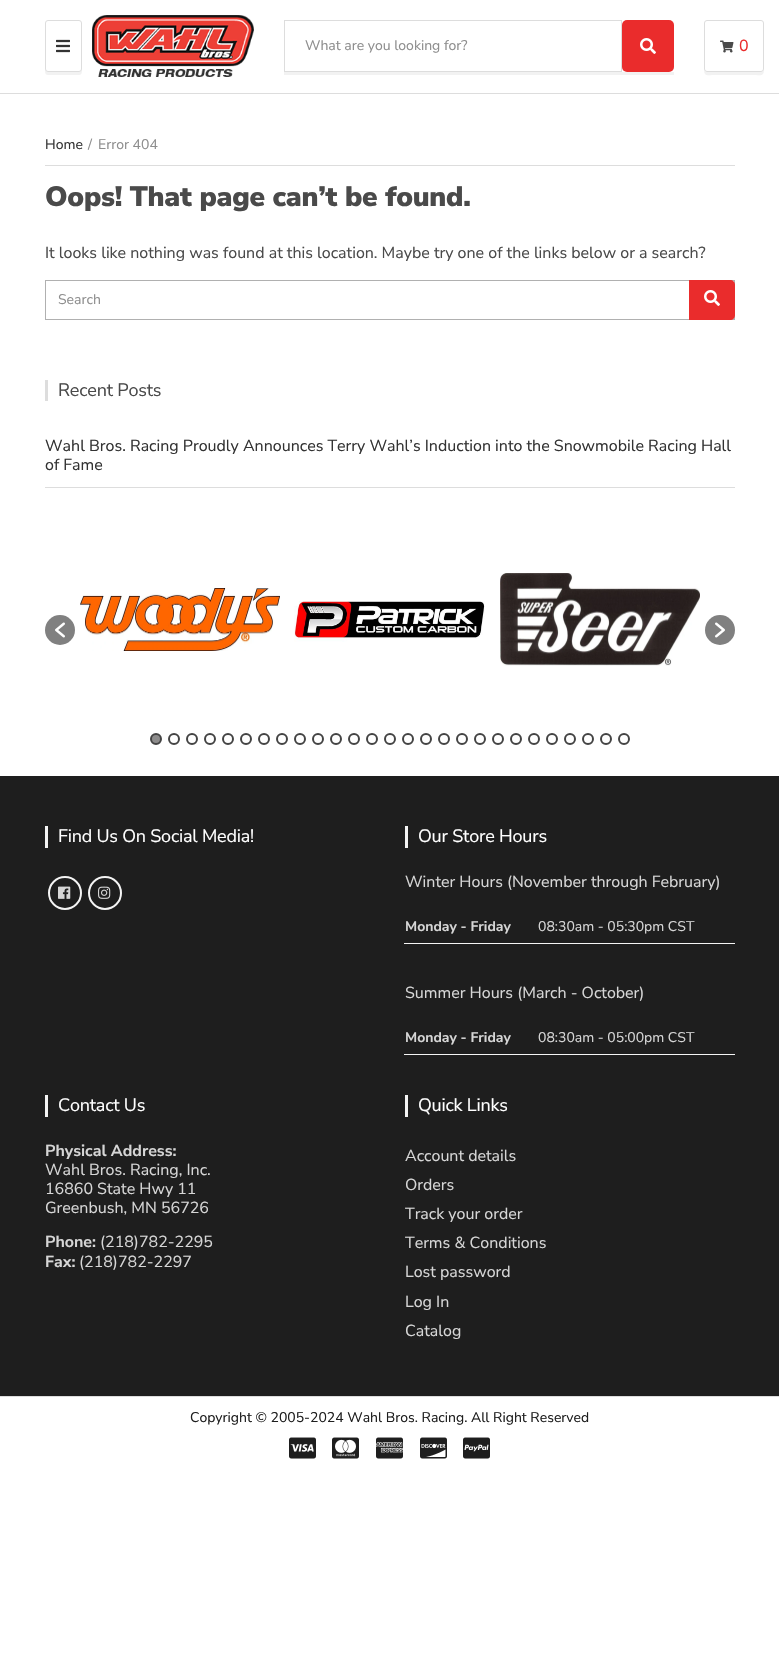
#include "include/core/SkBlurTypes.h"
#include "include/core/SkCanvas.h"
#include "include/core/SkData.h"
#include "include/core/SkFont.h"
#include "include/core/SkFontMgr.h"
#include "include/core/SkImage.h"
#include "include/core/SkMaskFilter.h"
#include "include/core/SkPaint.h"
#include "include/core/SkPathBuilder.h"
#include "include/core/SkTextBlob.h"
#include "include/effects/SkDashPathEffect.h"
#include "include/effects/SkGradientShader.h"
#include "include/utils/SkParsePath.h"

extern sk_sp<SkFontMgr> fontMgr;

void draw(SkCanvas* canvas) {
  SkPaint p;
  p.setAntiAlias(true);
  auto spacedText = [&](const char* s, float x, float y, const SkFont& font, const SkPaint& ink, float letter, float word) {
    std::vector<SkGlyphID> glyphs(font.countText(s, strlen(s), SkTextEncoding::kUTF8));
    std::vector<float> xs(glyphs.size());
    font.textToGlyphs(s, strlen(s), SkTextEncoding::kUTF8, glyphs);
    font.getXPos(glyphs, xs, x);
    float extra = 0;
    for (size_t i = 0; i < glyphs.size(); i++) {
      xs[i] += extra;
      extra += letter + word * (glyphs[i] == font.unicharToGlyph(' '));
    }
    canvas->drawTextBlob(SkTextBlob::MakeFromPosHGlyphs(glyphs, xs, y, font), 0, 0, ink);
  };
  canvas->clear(SK_ColorWHITE);
  p.setColor(SkColorSetRGB(242, 242, 242));
  canvas->drawPath(SkPathBuilder().moveTo(45, 69).cubicTo(45, 76, 46, 75, 53, 75).lineTo(74, 75).cubicTo(81, 75, 82, 76, 82, 69).cubicTo(82, 70.5f, 80.5f, 72, 79, 72).lineTo(48, 72).cubicTo(46.5f, 72, 45, 70.5f, 45, 69).close().detach(), p);
  p.setStyle(SkPaint::kStroke_Style);
  p.setStrokeWidth(1);
  p.setColor(SkColorSetRGB(221, 221, 221));
  canvas->drawRoundRect(SkRect::MakeLTRB(45.5f, 20.5f, 81.5f, 71.5f), 2.5f, 2.5f, p);
  canvas->drawImageRect(SkImages::DeferredFromEncodedData(SkData::MakeFromFileName("images/1.png")), SkRect::MakeLTRB(56, 39, 70, 53), SkSamplingOptions());
  canvas->drawImageRect(SkImages::DeferredFromEncodedData(SkData::MakeFromFileName("images/2.png")), SkRect::MakeLTRB(92, 15, 254, 77), SkSamplingOptions());
  p.setStyle(SkPaint::kFill_Style);
  p.setColor(SkColorSetRGB(242, 242, 242));
  canvas->drawRect(SkRect::MakeLTRB(284, 72, 674, 75), p);
  p.setStyle(SkPaint::kStroke_Style);
  p.setColor(SkColorSetRGB(221, 221, 221));
  canvas->drawRect(SkRect::MakeLTRB(284.5f, 20.5f, 621.5f, 71.5f), p);
  p.setStyle(SkPaint::kFill_Style);
  p.setColor(SkColorSetRGB(234, 44, 44));
  canvas->drawRoundRect(SkRect::MakeLTRB(622, 20, 674, 72), 5, 5, p);
  canvas->drawImageRect(SkImages::DeferredFromEncodedData(SkData::MakeFromFileName("images/3.png")), SkRect::MakeLTRB(640, 38, 656, 54), SkSamplingOptions());
  p.setColor(SkColorSetRGB(242, 242, 242));
  canvas->drawPath(SkPathBuilder().moveTo(704, 69).cubicTo(704, 77, 707, 75, 716, 75).lineTo(752, 75).cubicTo(761, 75, 764, 77, 764, 69).cubicTo(764, 71, 763, 72, 761, 72).lineTo(707, 72).cubicTo(705, 72, 704, 71, 704, 69).close().detach(), p);
  p.setStyle(SkPaint::kStroke_Style);
  p.setColor(SkColorSetRGB(221, 221, 221));
  canvas->drawRoundRect(SkRect::MakeLTRB(704.5f, 20.5f, 763.5f, 71.5f), 2.5f, 2.5f, p);
  canvas->drawImageRect(SkImages::DeferredFromEncodedData(SkData::MakeFromFileName("images/4.png")), SkRect::MakeLTRB(720, 40, 734, 53), SkSamplingOptions());
  p.setStyle(SkPaint::kFill_Style);
  canvas->drawRect(SkRect::MakeLTRB(0, 93, 779, 94), p);
  canvas->drawRect(SkRect::MakeLTRB(45, 165, 735, 166), p);
  p.setStyle(SkPaint::kStroke_Style);
  p.setColor(SkColorSetRGB(176, 176, 176));
  canvas->drawRect(SkRect::MakeLTRB(45.5f, 280.5f, 734.5f, 319.5f), p);
  p.setStyle(SkPaint::kFill_Style);
  p.setColor(SkColorSetRGB(234, 44, 44));
  canvas->drawPath(SkPathBuilder().moveTo(689, 280).lineTo(730, 280).cubicTo(733, 280, 735, 282, 735, 285).lineTo(735, 315).cubicTo(735, 318, 733, 320, 730, 320).lineTo(689, 320).close().detach(), p);
  canvas->drawImageRect(SkImages::DeferredFromEncodedData(SkData::MakeFromFileName("images/3.png")), SkRect::MakeLTRB(704, 290, 720, 306), SkSamplingOptions());
  p.setColor(SkColorSetRGB(221, 221, 221));
  canvas->drawRect(SkRect::MakeLTRB(45, 380, 48, 401), p);
  canvas->drawRect(SkRect::MakeLTRB(45, 487, 735, 488), p);
  p.setColor(SkColorSetRGB(128, 128, 128));
  canvas->drawCircle(60, 630, 15, p);
  canvas->drawImageRect(SkImages::DeferredFromEncodedData(SkData::MakeFromFileName("images/5.png")), SkRect::MakeLTRB(55, 622, 65, 638), SkSamplingOptions());
  canvas->drawImageRect(SkImages::DeferredFromEncodedData(SkData::MakeFromFileName("images/6.png")), SkRect::MakeLTRB(80, 588, 280, 651), SkSamplingOptions());
  canvas->drawImageRect(SkImages::DeferredFromEncodedData(SkData::MakeFromFileName("images/7.png")), SkRect::MakeLTRB(294, 601, 485, 642), SkSamplingOptions());
  canvas->drawImageRect(SkImages::DeferredFromEncodedData(SkData::MakeFromFileName("images/8.png")), SkRect::MakeLTRB(500, 573, 700, 666), SkSamplingOptions());
  canvas->drawCircle(720, 630, 15, p);
  canvas->drawImageRect(SkImages::DeferredFromEncodedData(SkData::MakeFromFileName("images/9.png")), SkRect::MakeLTRB(715, 622, 725, 638), SkSamplingOptions());
  p.setColor(SkColorSetRGB(141, 140, 140));
  canvas->drawCircle(156, 739, 5, p);
  p.setStyle(SkPaint::kStroke_Style);
  p.setStrokeWidth(2);
  p.setColor(SkColorSetRGB(68, 68, 68));
  canvas->drawCircle(156, 739, 5, p);
  canvas->drawCircle(174, 739, 5, p);
  canvas->drawCircle(192, 739, 5, p);
  canvas->drawCircle(210, 739, 5, p);
  canvas->drawCircle(228, 739, 5, p);
  canvas->drawCircle(246, 739, 5, p);
  canvas->drawCircle(264, 739, 5, p);
  canvas->drawCircle(282, 739, 5, p);
  canvas->drawCircle(300, 739, 5, p);
  canvas->drawCircle(318, 739, 5, p);
  canvas->drawCircle(336, 739, 5, p);
  canvas->drawCircle(354, 739, 5, p);
  canvas->drawCircle(372, 739, 5, p);
  canvas->drawCircle(390, 739, 5, p);
  canvas->drawCircle(408, 739, 5, p);
  canvas->drawCircle(426, 739, 5, p);
  canvas->drawCircle(444, 739, 5, p);
  canvas->drawCircle(462, 739, 5, p);
  canvas->drawCircle(480, 739, 5, p);
  canvas->drawCircle(498, 739, 5, p);
  canvas->drawCircle(516, 739, 5, p);
  canvas->drawCircle(534, 739, 5, p);
  canvas->drawCircle(552, 739, 5, p);
  canvas->drawCircle(570, 739, 5, p);
  canvas->drawCircle(588, 739, 5, p);
  canvas->drawCircle(606, 739, 5, p);
  canvas->drawCircle(624, 739, 5, p);
  p.setStyle(SkPaint::kFill_Style);
  p.setColor(SkColorSetRGB(30, 30, 30));
  canvas->drawRect(SkRect::MakeLTRB(0, 776, 779, 1396), p);
  p.setColor(SkColorSetRGB(244, 244, 244));
  canvas->drawRect(SkRect::MakeLTRB(45, 826, 48, 848), p);
  p.setStyle(SkPaint::kStroke_Style);
  canvas->drawCircle(65, 893, 16, p);
  canvas->drawImageRect(SkImages::DeferredFromEncodedData(SkData::MakeFromFileName("images/10.png")), SkRect::MakeLTRB(58, 886, 71, 899), SkSamplingOptions());
  canvas->drawCircle(105, 893, 16, p);
  canvas->drawImageRect(SkImages::DeferredFromEncodedData(SkData::MakeFromFileName("images/11.png")), SkRect::MakeLTRB(98, 886, 111, 899), SkSamplingOptions());
  p.setStyle(SkPaint::kFill_Style);
  canvas->drawRect(SkRect::MakeLTRB(405, 826, 408, 848), p);
  canvas->drawRect(SkRect::MakeLTRB(404, 943, 735, 944), p);
  canvas->drawRect(SkRect::MakeLTRB(404, 1054, 735, 1055), p);
  canvas->drawRect(SkRect::MakeLTRB(45, 1095, 48, 1117), p);
  canvas->drawRect(SkRect::MakeLTRB(405, 1095, 408, 1117), p);
  p.setColor(SkColorSetRGB(221, 221, 221));
  canvas->drawRect(SkRect::MakeLTRB(0, 1396, 779, 1397), p);
  canvas->drawImageRect(SkImages::DeferredFromEncodedData(SkData::MakeFromFileName("images/12.png")), SkRect::MakeLTRB(289, 1437, 316, 1459), SkSamplingOptions());
  canvas->drawImageRect(SkImages::DeferredFromEncodedData(SkData::MakeFromFileName("images/13.png")), SkRect::MakeLTRB(332, 1437, 359, 1459), SkSamplingOptions());
  canvas->drawImageRect(SkImages::DeferredFromEncodedData(SkData::MakeFromFileName("images/14.png")), SkRect::MakeLTRB(376, 1437, 403, 1459), SkSamplingOptions());
  canvas->drawImageRect(SkImages::DeferredFromEncodedData(SkData::MakeFromFileName("images/15.png")), SkRect::MakeLTRB(420, 1437, 447, 1459), SkSamplingOptions());
  canvas->drawImageRect(SkImages::DeferredFromEncodedData(SkData::MakeFromFileName("images/16.png")), SkRect::MakeLTRB(463, 1437, 490, 1459), SkSamplingOptions());
  SkFont font1(fontMgr->matchFamilyStyle("Nunito Sans", SkFontStyle::Normal()), 14);
  font1.setSubpixel(true);
  p.setColor(SkColorSetRGB(142, 142, 142));
  canvas->drawString("What are you looking for?", 305, 50, font1, p);
  SkFont font2(fontMgr->matchFamilyStyle("Nunito Sans", SkFontStyle::Normal()), 16);
  font2.setSubpixel(true);
  p.setColor(SkColorSetRGB(234, 44, 44));
  canvas->drawString("0", 739, 51, font2, p);
  p.setColor(SkColorSetRGB(51, 51, 51));
  canvas->drawString("Home", 45, 149, font1, p);
  p.setColor(SkColorSetRGB(142, 142, 142));
  canvas->drawString("/", 88, 149, font1, p);
  canvas->drawString("Error 404", 98, 149, font1, p);
  SkFont font3(fontMgr->matchFamilyStyle("Nunito Sans", SkFontStyle(900, SkFontStyle::kNormal_Width, SkFontStyle::kUpright_Slant)), 28);
  font3.setSubpixel(true);
  p.setColor(SkColorSetRGB(74, 74, 74));
  spacedText("Oops! That page can’t be found.", 45, 206, font3, p, -0.25f, 0);
  canvas->drawString("It looks like nothing was found at this location. Maybe try one of the links below or a search?", 45, 258, font2, p);
  p.setColor(SkColorSetRGB(142, 142, 142));
  canvas->drawString("Search", 58, 304, font1, p);
  SkFont font4(fontMgr->matchFamilyStyle("Nunito Sans", SkFontStyle::Normal()), 18);
  font4.setSubpixel(true);
  p.setColor(SkColorSetRGB(74, 74, 74));
  spacedText("Recent Posts", 58, 396, font4, p, -0.2f, 0);
  p.setColor(SkColorSetRGB(51, 51, 51));
  canvas->drawString("Wahl Bros. Racing Proudly Announces Terry Wahl’s Induction into the Snowmobile Racing Hall", 45, 451, font2, p);
  canvas->drawString("of Fame", 45, 470, font2, p);
  p.setColor(SK_ColorWHITE);
  spacedText("Find Us On Social Media!", 58, 842, font4, p, -0.2f, 0);
  spacedText("Our Store Hours", 418, 842, font4, p, -0.2f, 0);
  p.setColor(SkColorSetRGB(214, 214, 214));
  canvas->drawString("Winter Hours (November through February)", 405, 887, font2, p);
  SkFont font5(fontMgr->matchFamilyStyle("Nunito Sans", SkFontStyle::Bold()), 14);
  font5.setSubpixel(true);
  canvas->drawString("Monday - Friday", 405, 931, font5, p);
  canvas->drawString("08:30am - 05:30pm CST", 538, 931, font1, p);
  canvas->drawString("Summer Hours (March - October)", 405, 998, font2, p);
  canvas->drawString("Monday - Friday", 405, 1042, font5, p);
  canvas->drawString("08:30am - 05:00pm CST", 538, 1042, font1, p);
  p.setColor(SK_ColorWHITE);
  spacedText("Contact Us", 58, 1111, font4, p, -0.2f, 0);
  SkFont font6(fontMgr->matchFamilyStyle("Nunito Sans", SkFontStyle::Bold()), 16);
  font6.setSubpixel(true);
  p.setColor(SkColorSetRGB(214, 214, 214));
  canvas->drawString("Physical Address:", 45, 1156, font6, p);
  canvas->drawString("Wahl Bros. Racing, Inc.", 45, 1175, font2, p);
  canvas->drawString("16860 State Hwy 11", 45, 1194, font2, p);
  canvas->drawString("Greenbush, MN 56726", 45, 1213, font2, p);
  canvas->drawString("Phone:", 45, 1247, font6, p);
  canvas->drawString("(218)782-2295", 100, 1247, font2, p);
  canvas->drawString("Fax:", 45, 1267, font6, p);
  canvas->drawString("(218)782-2297", 79, 1267, font2, p);
  p.setColor(SK_ColorWHITE);
  spacedText("Quick Links", 418, 1111, font4, p, -0.2f, 0);
  p.setColor(SkColorSetRGB(214, 214, 214));
  canvas->drawString("Account details", 405, 1161, font2, p);
  canvas->drawString("Orders", 405, 1190, font2, p);
  canvas->drawString("Track your order", 405, 1219, font2, p);
  canvas->drawString("Terms & Conditions", 405, 1248, font2, p);
  canvas->drawString("Lost password", 405, 1277, font2, p);
  canvas->drawString("Log In", 405, 1307, font2, p);
  canvas->drawString("Catalog", 405, 1336, font2, p);
  p.setColor(SkColorSetRGB(30, 30, 30));
  canvas->drawString("Copyright © 2005-2024 Wahl Bros. Racing. All Right Reserved", 190, 1422, font1, p);
}
